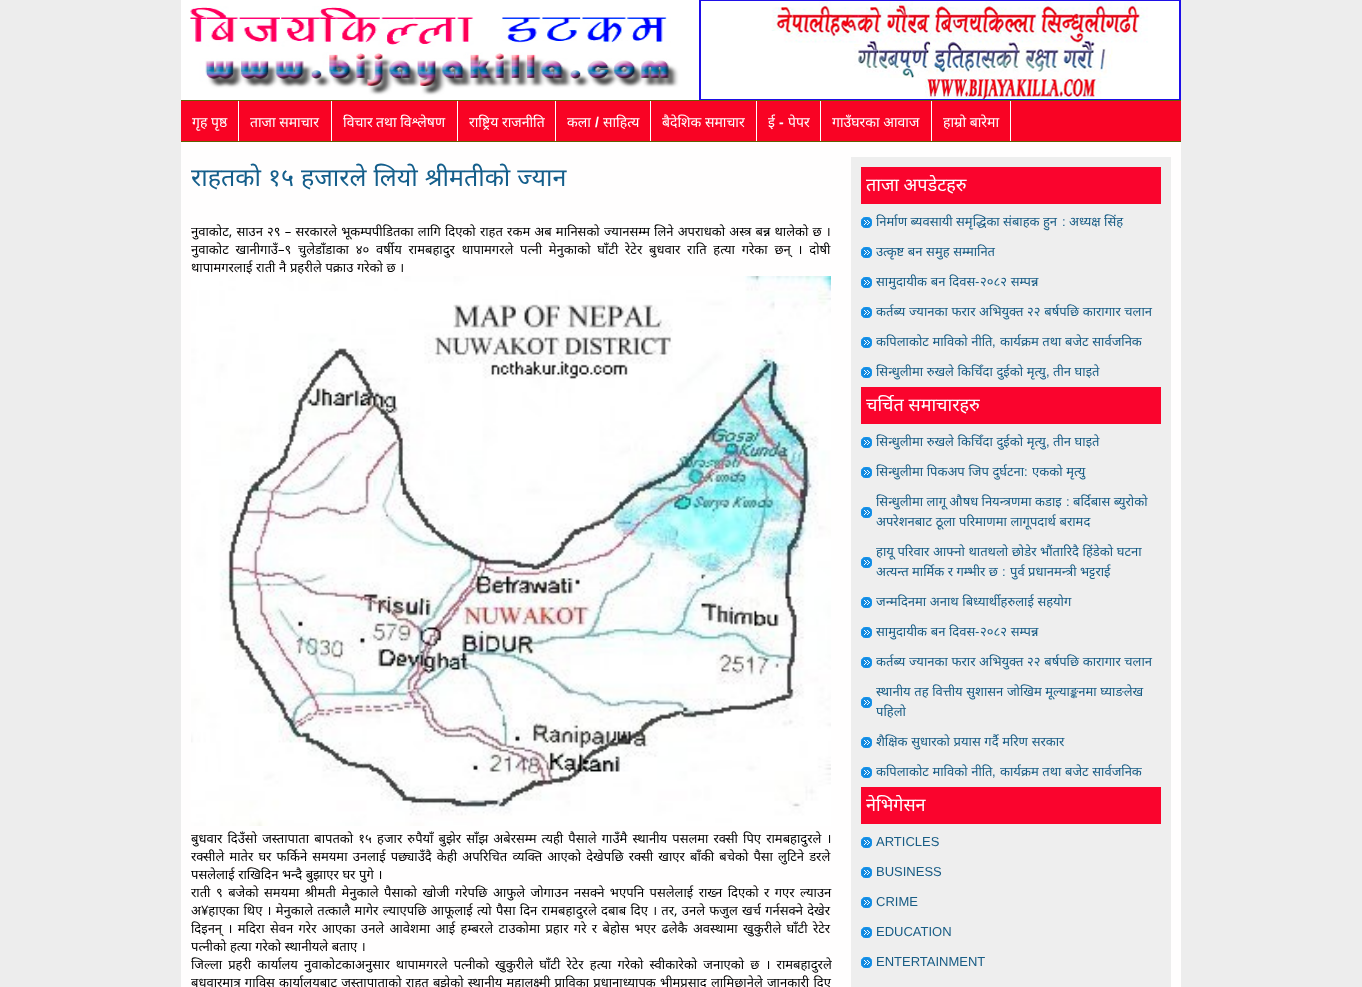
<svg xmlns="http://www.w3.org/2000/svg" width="1362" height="987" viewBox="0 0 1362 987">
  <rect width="100%" height="100%" fill="rgb(237,237,237)"/>
  <image x="181" y="0" width="518" height="100" href="pic1.png"/>
  <image x="699" y="0" width="482" height="100" href="pic2.png"/>
  <rect x="181" y="101" width="1000" height="40" fill="rgb(249,3,36)"/>
  <rect x="181" y="100" width="1000" height="1" fill="rgb(98,94,0)"/>
  <rect x="181" y="141" width="1000" height="1" fill="rgb(98,94,0)"/>
  <rect x="238" y="101" width="1" height="40" fill="rgb(255,255,255)"/>
  <text x="192" y="127" font-family="Noto Sans" font-size="14" fill="rgb(255,255,255)">गृह पृष्ठ</text>
  <rect x="331" y="101" width="1" height="40" fill="rgb(255,255,255)"/>
  <text x="250" y="127" font-family="Noto Sans" font-size="14" fill="rgb(255,255,255)">ताजा समाचार</text>
  <rect x="457" y="101" width="1" height="40" fill="rgb(255,255,255)"/>
  <g font-family="Noto Sans" font-size="14" fill="rgb(255,255,255)">
    <text x="343" y="127">विचार</text>
    <text x="376" y="127">तथा विश्लेषण</text>
  </g>
  <rect x="555" y="101" width="1" height="40" fill="rgb(255,255,255)"/>
  <text x="469" y="127" font-family="Noto Sans" font-size="14" fill="rgb(255,255,255)">राष्ट्रिय राजनीति</text>
  <rect x="650" y="101" width="1" height="40" fill="rgb(255,255,255)"/>
  <text x="567" y="127" font-family="Noto Sans" font-size="14" fill="rgb(255,255,255)">कला</text>
  <text x="595" y="127" font-family="Liberation Sans" font-size="14" font-weight="bold" fill="rgb(255,255,255)">/</text>
  <text x="603" y="127" font-family="Noto Sans" font-size="14" fill="rgb(255,255,255)">साहित्य</text>
  <rect x="756" y="101" width="1" height="40" fill="rgb(255,255,255)"/>
  <text x="662" y="127" font-family="Noto Sans" font-size="14" fill="rgb(255,255,255)">बैदेशिक समाचार</text>
  <rect x="820" y="101" width="1" height="40" fill="rgb(255,255,255)"/>
  <text x="768" y="127" font-family="Noto Sans" font-size="14" fill="rgb(255,255,255)">ई</text>
  <text x="779" y="127" font-family="Liberation Sans" font-size="14" font-weight="bold" fill="rgb(255,255,255)">-</text>
  <text x="788" y="127" font-family="Noto Sans" font-size="14" fill="rgb(255,255,255)">पेपर</text>
  <rect x="931" y="101" width="1" height="40" fill="rgb(255,255,255)"/>
  <text x="832" y="127" font-family="Noto Sans" font-size="14" fill="rgb(255,255,255)">गाउँघरका आवाज</text>
  <rect x="1010" y="101" width="1" height="40" fill="rgb(255,255,255)"/>
  <text x="943" y="127" font-family="Noto Sans" font-size="14" fill="rgb(255,255,255)">हाम्रो बारेमा</text>
  <rect x="181" y="142" width="1000" height="845" fill="rgb(255,254,254)"/>
  <text x="191" y="186" word-spacing="0.5" font-family="Noto Sans" font-size="25" fill="rgb(20,94,139)">राहतको १५ हजारले लियो श्रीमतीको ज्यान</text>
  <g font-family="Noto Sans" font-size="13" fill="rgb(0,0,0)">
    <text>
      <tspan x="191" y="236" word-spacing="0.8">नुवाकोट, साउन २९ – सरकारले भूकम्पपीडितका लागि दिएको राहत रकम अब मानिसको ज्यानसम्म लिने अपराधको अस्त्र बन्न थालेको छ ।</tspan>
      <tspan x="191" y="254" word-spacing="3.4">नुवाकोट खानीगाउँ–९ चुलेडाँडाका ४० वर्षीय रामबहादुर थापामगरले पत्नी मेनुकाको घाँटी रेटेर बुधवार राति हत्या गरेका छन् । दोषी</tspan>
      <tspan x="191" y="272" word-spacing="0.25">थापामगरलाई राती नै प्रहरीले पक्राउ गरेको छ ।</tspan>
    </text>
  </g>
  <image x="191" y="276" width="640" height="550" href="pic3.png"/>
  <g font-family="Noto Sans" font-size="13" fill="rgb(0,0,0)">
    <text>
      <tspan x="191" y="843" word-spacing="1.75">बुधवार दिउँसो जस्तापाता बापतको १५ हजार रुपैयाँ बुझेर साँझ अबेरसम्म त्यही पैसाले गाउँमै स्थानीय पसलमा रक्सी पिए रामबहादुरले ।</tspan>
      <tspan x="191" y="861" word-spacing="1.75">रक्सीले मातेर घर फर्किने समयमा उनलाई पछ्याउँदै केही अपरिचित व्यक्ति आएको देखेपछि रक्सी खाएर बाँकी बचेको पैसा लुटिने डरले</tspan>
      <tspan x="191" y="879" word-spacing="0.25">पसलेलाई राखिदिन भन्दै बुझाएर घर पुगे ।</tspan>
      <tspan x="191" y="897" word-spacing="2.1">राती ९ बजेको समयमा श्रीमती मेनुकाले पैसाको खोजी गरेपछि आफुले जोगाउन नसक्ने भएपनि पसलेलाई राख्न दिएको र गएर ल्याउन</tspan>
      <tspan x="191" y="915" word-spacing="0.9">अ¥हाएका थिए । मेनुकाले तत्कालै मागेर ल्याएपछि आफूलाई त्यो पैसा दिन रामबहादुरले दबाब दिए । तर, उनले फजुल खर्च गर्नसक्ने देखेर</tspan>
      <tspan x="191" y="933" word-spacing="2">दिइनन् । मदिरा सेवन गरेर आएका उनले आवेशमा आई हम्बरले टाउकोमा प्रहार गरे र बेहोस भएर ढलेकै अवस्थामा खुकुरीले घाँटी रेटेर</tspan>
      <tspan x="191" y="951" word-spacing="0.25">पत्नीको हत्या गरेको स्थानीयले बताए ।</tspan>
      <tspan x="191" y="969" word-spacing="2.75">जिल्ला प्रहरी कार्यालय नुवाकोटकाअनुसार थापामगरले पत्नीको खुकुरीले घाँटी रेटेर हत्या गरेको स्वीकारेको जनाएको छ । रामबहादुरले</tspan>
      <tspan x="191" y="987" word-spacing="0.8">बुधवारमात्र गाविस कार्यालयबाट जस्तापाताको राहत बुझेको स्थानीय महालक्ष्मी प्राविका प्रधानाध्यापक भीमप्रसाद लामिछानेले जानकारी दिए</tspan>
    </text>
  </g>
  <rect x="851" y="157" width="320" height="830" fill="rgb(238,238,238)"/>
  <rect x="861" y="167" width="300" height="37" fill="rgb(250,4,45)"/>
  <text x="866" y="191" font-family="Noto Sans" font-size="18" fill="rgb(255,255,255)">ताजा अपडेटहरु</text>
  <image x="861" y="217" width="11" height="11" href="pic4.png"/>
  <text x="876" y="226" font-family="Noto Sans" font-size="13" fill="rgb(23,92,133)">निर्माण ब्यवसायी समृद्धिका संबाहक हुन</text>
  <text x="1062" y="226" font-family="Liberation Sans" font-size="13" fill="rgb(23,92,133)">:</text>
  <text x="1069" y="226" font-family="Noto Sans" font-size="13" fill="rgb(23,92,133)">अध्यक्ष सिंह</text>
  <image x="861" y="247" width="11" height="11" href="pic4.png"/>
  <text x="876" y="256" word-spacing="0.25" font-family="Noto Sans" font-size="13" fill="rgb(23,92,133)">उत्कृष्ट बन समुह सम्मानित</text>
  <image x="861" y="277" width="11" height="11" href="pic4.png"/>
  <text x="876" y="286" word-spacing="0.25" font-family="Noto Sans" font-size="13" fill="rgb(23,92,133)">सामुदायीक बन दिवस</text>
  <text x="975" y="286" font-family="Liberation Sans" font-size="13" fill="rgb(23,92,133)">-</text>
  <text x="980" y="286" word-spacing="0.25" font-family="Noto Sans" font-size="13" fill="rgb(23,92,133)">२०८२ सम्पन्न</text>
  <image x="861" y="307" width="11" height="11" href="pic4.png"/>
  <text x="876" y="316" word-spacing="0.25" font-family="Noto Sans" font-size="13" fill="rgb(23,92,133)">कर्तब्य ज्यानका फरार अभियुक्त २२ बर्षपछि कारागार चलान</text>
  <image x="861" y="337" width="11" height="11" href="pic4.png"/>
  <text x="876" y="346" word-spacing="0.25" font-family="Noto Sans" font-size="13" fill="rgb(23,92,133)">कपिलाकोट माविको नीति</text>
  <text x="992" y="346" font-family="Liberation Sans" font-size="13" fill="rgb(23,92,133)">,</text>
  <text x="1000" y="346" word-spacing="0.25" font-family="Noto Sans" font-size="13" fill="rgb(23,92,133)">कार्यक्रम तथा बजेट सार्वजनिक</text>
  <image x="861" y="367" width="11" height="11" href="pic4.png"/>
  <text x="876" y="376" word-spacing="0.25" font-family="Noto Sans" font-size="13" fill="rgb(23,92,133)">सिन्धुलीमा रुखले किचिँदा दुईको मृत्यु</text>
  <text x="1046" y="376" font-family="Liberation Sans" font-size="13" fill="rgb(23,92,133)">,</text>
  <text x="1053" y="376" word-spacing="0.25" font-family="Noto Sans" font-size="13" fill="rgb(23,92,133)">तीन घाइते</text>
  <rect x="861" y="387" width="300" height="37" fill="rgb(250,4,45)"/>
  <text x="866" y="411" font-family="Noto Sans" font-size="18" fill="rgb(255,255,255)">चर्चित समाचारहरु</text>
  <image x="861" y="437" width="11" height="11" href="pic4.png"/>
  <text x="876" y="446" word-spacing="0.25" font-family="Noto Sans" font-size="13" fill="rgb(23,92,133)">सिन्धुलीमा रुखले किचिँदा दुईको मृत्यु</text>
  <text x="1046" y="446" font-family="Liberation Sans" font-size="13" fill="rgb(23,92,133)">,</text>
  <text x="1053" y="446" word-spacing="0.25" font-family="Noto Sans" font-size="13" fill="rgb(23,92,133)">तीन घाइते</text>
  <image x="861" y="467" width="11" height="11" href="pic4.png"/>
  <text x="876" y="476" word-spacing="0.25" font-family="Noto Sans" font-size="13" fill="rgb(23,92,133)">सिन्धुलीमा पिकअप जिप दुर्घटना</text>
  <text x="1024" y="476" font-family="Liberation Sans" font-size="13" fill="rgb(23,92,133)">:</text>
  <text x="1032" y="476" word-spacing="0.25" font-family="Noto Sans" font-size="13" fill="rgb(23,92,133)">एकको मृत्यु</text>
  <image x="861" y="507" width="11" height="11" href="pic4.png"/>
  <text x="876" y="506" font-family="Noto Sans" font-size="13" fill="rgb(23,92,133)">सिन्धुलीमा लागू औषध नियन्त्रणमा कडाइ</text>
  <text x="1066" y="506" font-family="Liberation Sans" font-size="13" fill="rgb(23,92,133)">:</text>
  <g font-family="Noto Sans" font-size="13" fill="rgb(23,92,133)">
    <text x="1073" y="506">बर्दिबास ब्युरोको</text>
    <text x="876" y="526" word-spacing="0.25">अपरेशनबाट ठूला परिमाणमा लागूपदार्थ बरामद</text>
  </g>
  <image x="861" y="557" width="11" height="11" href="pic4.png"/>
  <g font-family="Noto Sans" font-size="13" fill="rgb(23,92,133)">
    <text>
      <tspan x="876" y="556" word-spacing="0.25">हायू परिवार आफ्नो थातथलो छोडेर भौंतारिदै हिंडेको घटना</tspan>
      <tspan x="876" y="576">अत्यन्त मार्मिक र गम्भीर छ</tspan>
    </text>
  </g>
  <text x="1002" y="576" font-family="Liberation Sans" font-size="13" fill="rgb(23,92,133)">:</text>
  <text x="1010" y="576" font-family="Noto Sans" font-size="13" fill="rgb(23,92,133)">पुर्व प्रधानमन्त्री भट्टराई</text>
  <image x="861" y="597" width="11" height="11" href="pic4.png"/>
  <text x="876" y="606" word-spacing="0.25" font-family="Noto Sans" font-size="13" fill="rgb(23,92,133)">जन्मदिनमा अनाथ बिध्यार्थीहरुलाई सहयोग</text>
  <image x="861" y="627" width="11" height="11" href="pic4.png"/>
  <text x="876" y="636" word-spacing="0.25" font-family="Noto Sans" font-size="13" fill="rgb(23,92,133)">सामुदायीक बन दिवस</text>
  <text x="975" y="636" font-family="Liberation Sans" font-size="13" fill="rgb(23,92,133)">-</text>
  <text x="980" y="636" word-spacing="0.25" font-family="Noto Sans" font-size="13" fill="rgb(23,92,133)">२०८२ सम्पन्न</text>
  <image x="861" y="657" width="11" height="11" href="pic4.png"/>
  <text x="876" y="666" word-spacing="0.25" font-family="Noto Sans" font-size="13" fill="rgb(23,92,133)">कर्तब्य ज्यानका फरार अभियुक्त २२ बर्षपछि कारागार चलान</text>
  <image x="861" y="697" width="11" height="11" href="pic4.png"/>
  <g font-family="Noto Sans" font-size="13" fill="rgb(23,92,133)">
    <text>
      <tspan x="876" y="696" word-spacing="0.25">स्थानीय तह वित्तीय सुशासन जोखिम मूल्याङ्कनमा घ्याङलेख</tspan>
      <tspan x="876" y="716">पहिलो</tspan>
    </text>
  </g>
  <image x="861" y="737" width="11" height="11" href="pic4.png"/>
  <text x="876" y="746" word-spacing="0.25" font-family="Noto Sans" font-size="13" fill="rgb(23,92,133)">शैक्षिक सुधारको प्रयास गर्दै मरिण सरकार</text>
  <image x="861" y="767" width="11" height="11" href="pic4.png"/>
  <text x="876" y="776" word-spacing="0.25" font-family="Noto Sans" font-size="13" fill="rgb(23,92,133)">कपिलाकोट माविको नीति</text>
  <text x="992" y="776" font-family="Liberation Sans" font-size="13" fill="rgb(23,92,133)">,</text>
  <text x="1000" y="776" word-spacing="0.25" font-family="Noto Sans" font-size="13" fill="rgb(23,92,133)">कार्यक्रम तथा बजेट सार्वजनिक</text>
  <rect x="861" y="787" width="300" height="37" fill="rgb(250,4,45)"/>
  <text x="866" y="811" font-family="Noto Sans" font-size="18" fill="rgb(255,255,255)">नेभिगेसन</text>
  <image x="861" y="837" width="11" height="11" href="pic4.png"/>
  <text x="876" y="846" font-family="Liberation Sans" font-size="13" fill="rgb(23,92,133)">ARTICLES</text>
  <image x="861" y="867" width="11" height="11" href="pic4.png"/>
  <text x="876" y="876" font-family="Liberation Sans" font-size="13" fill="rgb(23,92,133)">BUSINESS</text>
  <image x="861" y="897" width="11" height="11" href="pic4.png"/>
  <text x="876" y="906" font-family="Liberation Sans" font-size="13" fill="rgb(23,92,133)">CRIME</text>
  <image x="861" y="927" width="11" height="11" href="pic4.png"/>
  <text x="876" y="936" font-family="Liberation Sans" font-size="13" fill="rgb(23,92,133)">EDUCATION</text>
  <image x="861" y="957" width="11" height="11" href="pic4.png"/>
  <text x="876" y="966" font-family="Liberation Sans" font-size="13" fill="rgb(23,92,133)">ENTERTAINMENT</text>
</svg>
